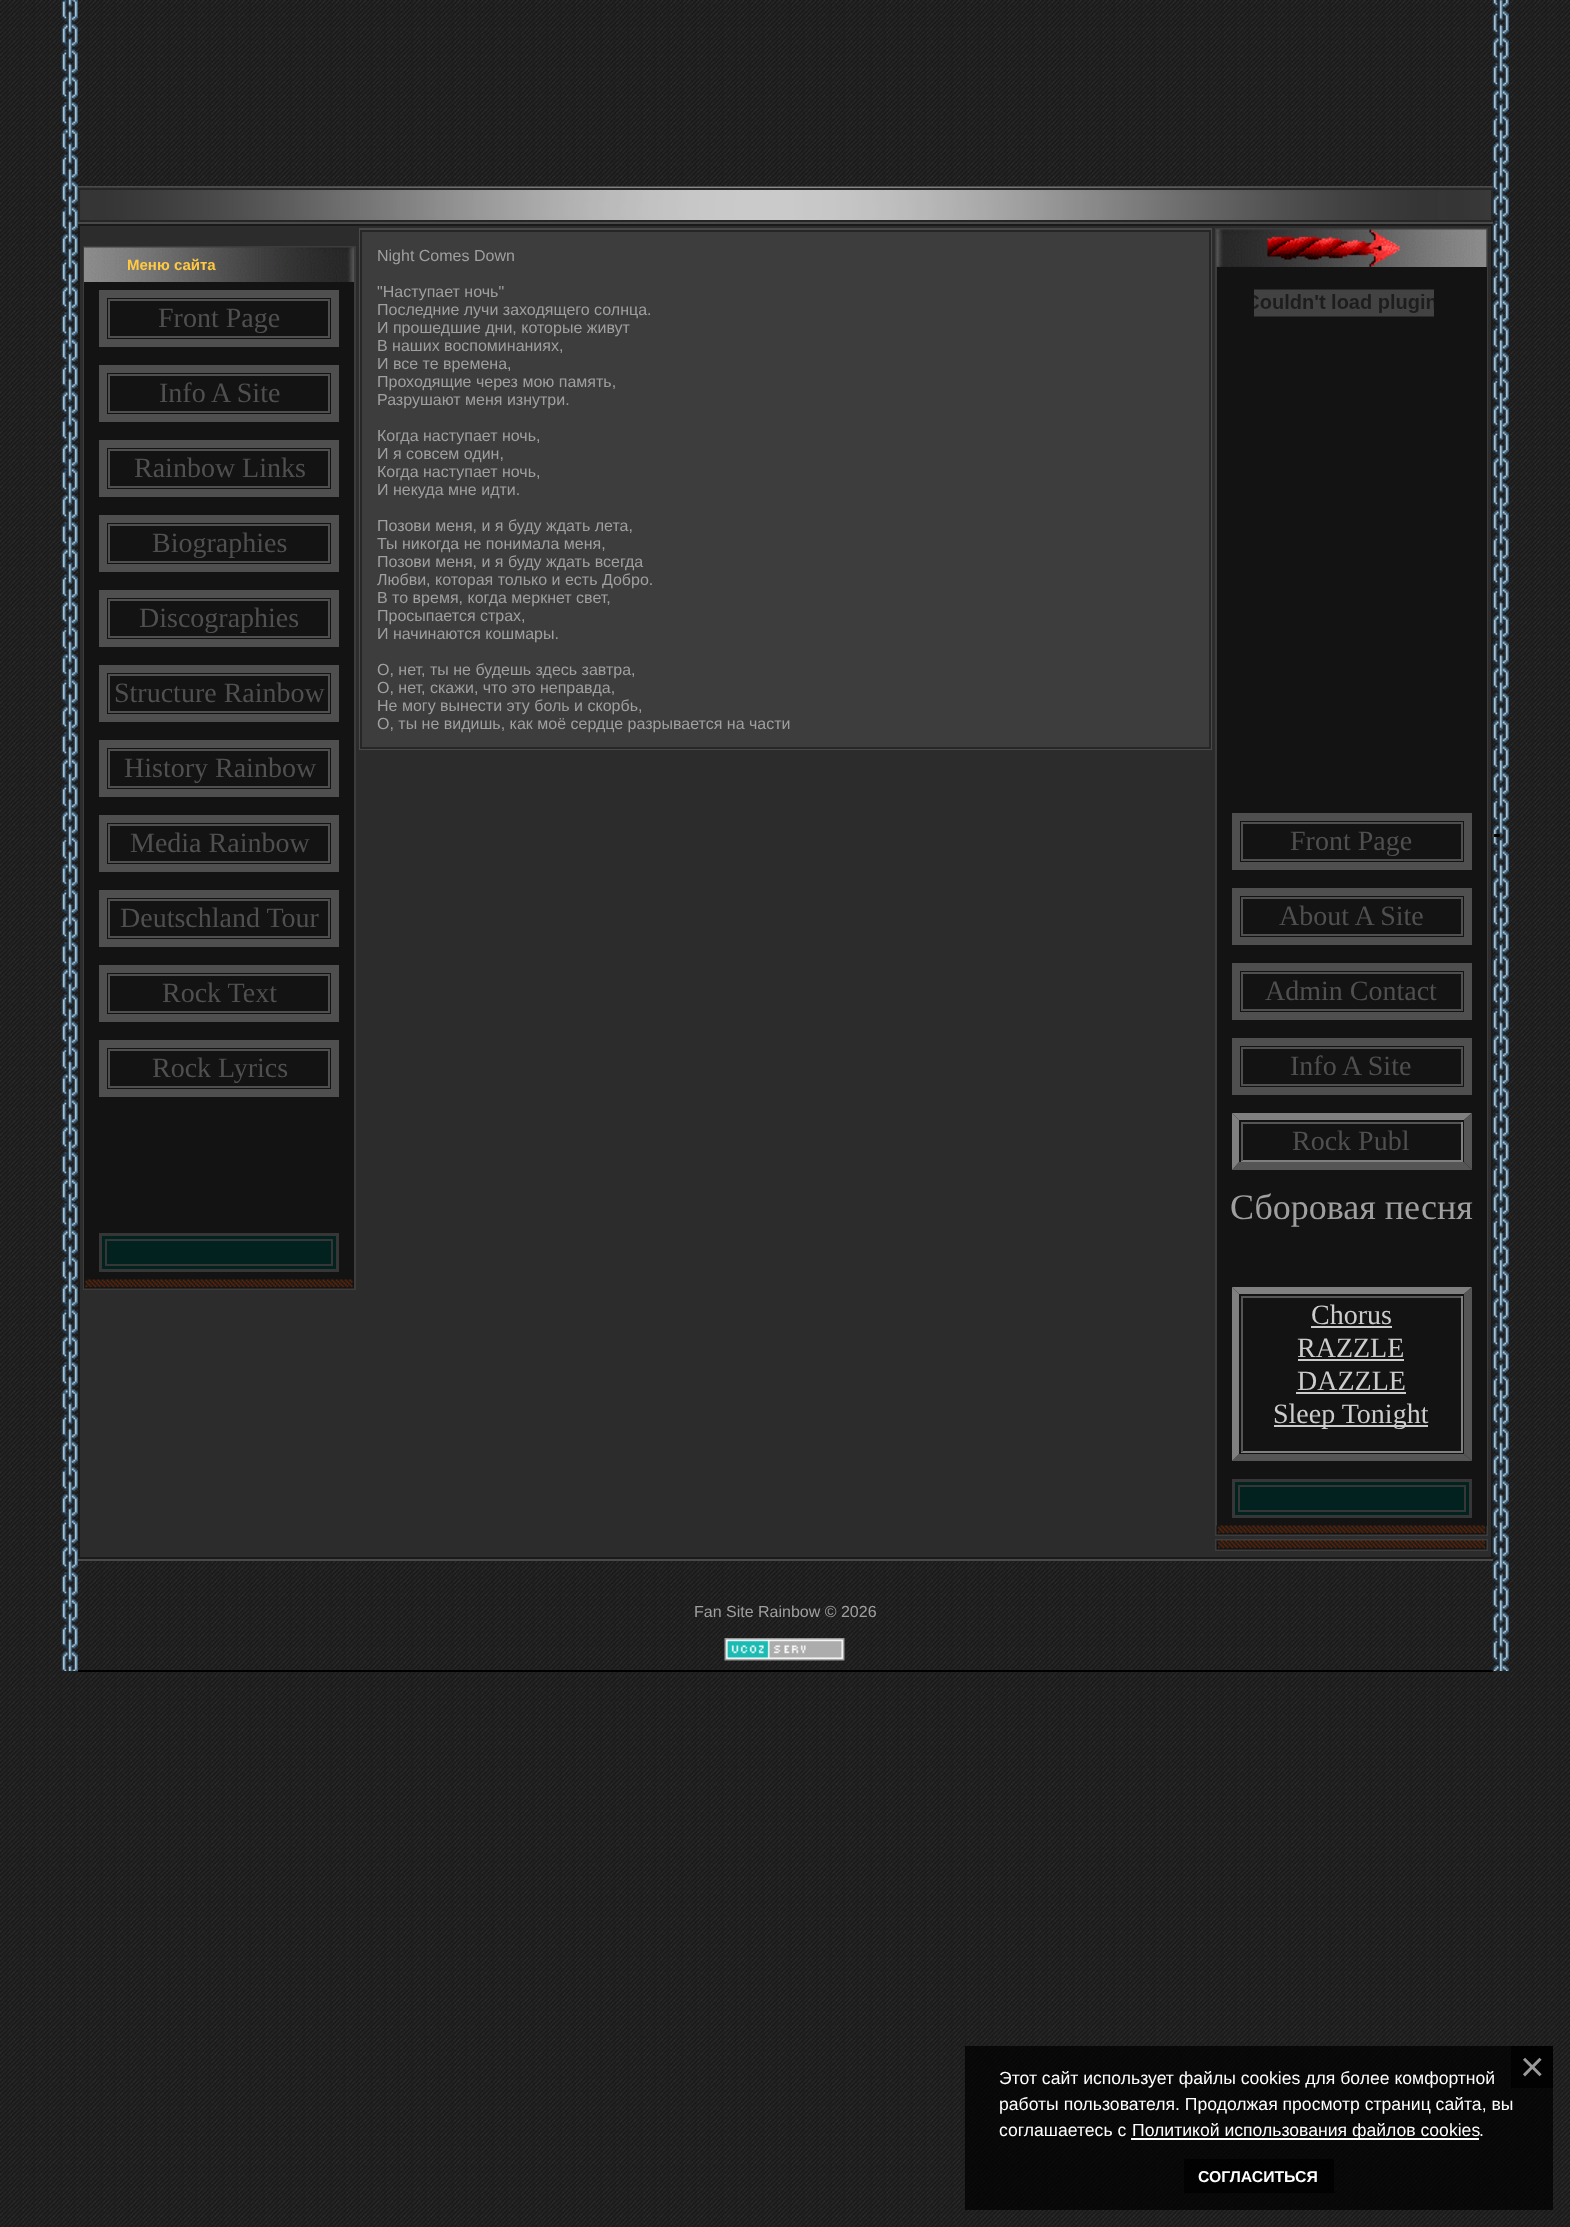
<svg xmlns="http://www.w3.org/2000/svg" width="1570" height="2227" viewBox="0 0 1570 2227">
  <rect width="100%" height="100%" fill="rgb(255,255,255)"/>
  <image x="0" y="0" width="1570" height="2227" href="pic1.png"/>
  <image x="61" y="0" width="17" height="1671" href="pic2.png"/>
  <rect x="78" y="1670" width="1415" height="2" fill="rgb(0,0,0)"/>
  <rect x="78" y="186" width="1415" height="2" fill="rgb(73,73,73)"/>
  <image x="78" y="187" width="1415" height="33" href="pic3.png"/>
  <rect x="79" y="189" width="1413" height="32" fill="none" stroke="rgb(38,38,38)" stroke-width="2"/>
  <rect x="78" y="222" width="1415" height="2" fill="rgb(73,73,73)"/>
  <rect x="78" y="1559" width="1415" height="2" fill="rgb(73,73,73)"/>
  <rect x="79" y="225" width="1413" height="1333" fill="rgb(44,44,44)" stroke="rgb(26,26,26)" stroke-width="2"/>
  <rect x="84" y="247" width="271" height="1042" fill="none" stroke="rgb(60,60,60)" stroke-width="2"/>
  <image x="84" y="247" width="270" height="35" href="pic4.png"/>
  <text x="127" y="270" font-family="Liberation Sans" font-size="15" font-weight="bold" fill="rgb(255,202,66)">Меню сайта</text>
  <rect x="84" y="282" width="270" height="998" fill="rgb(19,19,19)"/>
  <rect x="103" y="294" width="232" height="49" fill="none" stroke="rgb(79,79,79)" stroke-width="8"/>
  <rect x="109" y="300" width="220" height="37" fill="none" stroke="rgb(79,79,79)" stroke-width="2"/>
  <text x="158" y="327" font-family="Liberation Serif" font-size="28" fill="rgb(79,79,79)">Front Page</text>
  <rect x="103" y="369" width="232" height="49" fill="none" stroke="rgb(79,79,79)" stroke-width="8"/>
  <rect x="109" y="375" width="220" height="37" fill="none" stroke="rgb(79,79,79)" stroke-width="2"/>
  <text x="159" y="402" font-family="Liberation Serif" font-size="28" fill="rgb(79,79,79)">Info A Site</text>
  <rect x="103" y="444" width="232" height="49" fill="none" stroke="rgb(79,79,79)" stroke-width="8"/>
  <rect x="109" y="450" width="220" height="37" fill="none" stroke="rgb(79,79,79)" stroke-width="2"/>
  <text x="134" y="477" font-family="Liberation Serif" font-size="28" fill="rgb(79,79,79)">Rainbow Links</text>
  <rect x="103" y="519" width="232" height="49" fill="none" stroke="rgb(79,79,79)" stroke-width="8"/>
  <rect x="109" y="525" width="220" height="37" fill="none" stroke="rgb(79,79,79)" stroke-width="2"/>
  <text x="152" y="552" font-family="Liberation Serif" font-size="28" fill="rgb(79,79,79)">Biographies</text>
  <rect x="103" y="594" width="232" height="49" fill="none" stroke="rgb(79,79,79)" stroke-width="8"/>
  <rect x="109" y="600" width="220" height="37" fill="none" stroke="rgb(79,79,79)" stroke-width="2"/>
  <text x="139" y="627" font-family="Liberation Serif" font-size="28" fill="rgb(79,79,79)">Discographies</text>
  <rect x="103" y="669" width="232" height="49" fill="none" stroke="rgb(79,79,79)" stroke-width="8"/>
  <rect x="109" y="675" width="220" height="37" fill="none" stroke="rgb(79,79,79)" stroke-width="2"/>
  <text x="114" y="702" font-family="Liberation Serif" font-size="28" fill="rgb(79,79,79)">Structure Rainbow</text>
  <rect x="103" y="744" width="232" height="49" fill="none" stroke="rgb(79,79,79)" stroke-width="8"/>
  <rect x="109" y="750" width="220" height="37" fill="none" stroke="rgb(79,79,79)" stroke-width="2"/>
  <text x="124" y="777" font-family="Liberation Serif" font-size="28" fill="rgb(79,79,79)">History Rainbow</text>
  <rect x="103" y="819" width="232" height="49" fill="none" stroke="rgb(79,79,79)" stroke-width="8"/>
  <rect x="109" y="825" width="220" height="37" fill="none" stroke="rgb(79,79,79)" stroke-width="2"/>
  <text x="130" y="852" font-family="Liberation Serif" font-size="28" fill="rgb(79,79,79)">Media Rainbow</text>
  <rect x="103" y="894" width="232" height="49" fill="none" stroke="rgb(79,79,79)" stroke-width="8"/>
  <rect x="109" y="900" width="220" height="37" fill="none" stroke="rgb(79,79,79)" stroke-width="2"/>
  <text x="120" y="927" font-family="Liberation Serif" font-size="28" fill="rgb(79,79,79)">Deutschland Tour</text>
  <rect x="103" y="969" width="232" height="49" fill="none" stroke="rgb(79,79,79)" stroke-width="8"/>
  <rect x="109" y="975" width="220" height="37" fill="none" stroke="rgb(79,79,79)" stroke-width="2"/>
  <text x="162" y="1002" font-family="Liberation Serif" font-size="28" fill="rgb(79,79,79)">Rock Text</text>
  <rect x="103" y="1044" width="232" height="49" fill="none" stroke="rgb(79,79,79)" stroke-width="8"/>
  <rect x="109" y="1050" width="220" height="37" fill="none" stroke="rgb(79,79,79)" stroke-width="2"/>
  <text x="152" y="1077" font-family="Liberation Serif" font-size="28" fill="rgb(79,79,79)">Rock Lyrics</text>
  <rect x="100.5" y="1234.5" width="237" height="36" fill="rgb(2,34,31)" stroke="rgb(54,54,54)" stroke-width="3"/>
  <rect x="106" y="1240" width="226" height="25" fill="none" stroke="rgb(54,54,54)" stroke-width="2"/>
  <image x="84" y="1279" width="270" height="10" href="pic5.png"/>
  <rect x="360" y="229" width="851" height="520" fill="none" stroke="rgb(73,73,73)" stroke-width="2"/>
  <rect x="361" y="231" width="849" height="517" fill="rgb(61,61,61)" stroke="rgb(38,38,38)" stroke-width="2"/>
  <g font-family="Liberation Sans" font-size="16" fill="rgb(159,159,159)">
    <text x="377" y="261">Night Comes Down</text>
    <text>
      <tspan x="377" y="297">"Наступает ночь"</tspan>
      <tspan x="377" y="315">Последние лучи заходящего солнца.</tspan>
      <tspan x="377" y="333">И прошедшие дни, которые живут</tspan>
      <tspan x="377" y="351">В наших воспоминаниях,</tspan>
      <tspan x="377" y="369">И все те времена,</tspan>
      <tspan x="377" y="387">Проходящие через мою память,</tspan>
      <tspan x="377" y="405">Разрушают меня изнутри.</tspan>
    </text>
    <text>
      <tspan x="377" y="441">Когда наступает ночь,</tspan>
      <tspan x="377" y="459">И я совсем один,</tspan>
      <tspan x="377" y="477">Когда наступает ночь,</tspan>
      <tspan x="377" y="495">И некуда мне идти.</tspan>
    </text>
    <text>
      <tspan x="377" y="531">Позови меня, и я буду ждать лета,</tspan>
      <tspan x="377" y="549">Ты никогда не понимала меня,</tspan>
      <tspan x="377" y="567">Позови меня, и я буду ждать всегда</tspan>
      <tspan x="377" y="585">Любви, которая только и есть Добро.</tspan>
      <tspan x="377" y="603">В то время, когда меркнет свет,</tspan>
      <tspan x="377" y="621">Просыпается страх,</tspan>
      <tspan x="377" y="639">И начинаются кошмары.</tspan>
    </text>
    <text>
      <tspan x="377" y="675">О, нет, ты не будешь здесь завтра,</tspan>
      <tspan x="377" y="693">О, нет, скажи, что это неправда,</tspan>
      <tspan x="377" y="711">Не могу вынести эту боль и скорбь,</tspan>
      <tspan x="377" y="729">О, ты не видишь, как моё сердце разрывается на части</tspan>
    </text>
  </g>
  <rect x="1216" y="229" width="271" height="1306" fill="none" stroke="rgb(60,60,60)" stroke-width="2"/>
  <rect x="1486" y="230" width="1" height="37" fill="rgb(37,37,37)"/>
  <image x="1216" y="229" width="271" height="38" href="pic6.png"/>
  <image x="1267" y="229" width="133" height="38" href="pic7.png"/>
  <rect x="1217" y="267" width="270" height="1259" fill="rgb(19,19,19)"/>
  <image x="1254" y="289" width="180" height="28" href="pic8.png"/>
  <rect x="1236" y="817" width="232" height="49" fill="none" stroke="rgb(79,79,79)" stroke-width="8"/>
  <rect x="1242" y="823" width="220" height="37" fill="none" stroke="rgb(79,79,79)" stroke-width="2"/>
  <text x="1290" y="850" font-family="Liberation Serif" font-size="28" fill="rgb(79,79,79)">Front Page</text>
  <rect x="1236" y="892" width="232" height="49" fill="none" stroke="rgb(79,79,79)" stroke-width="8"/>
  <rect x="1242" y="898" width="220" height="37" fill="none" stroke="rgb(79,79,79)" stroke-width="2"/>
  <text x="1279" y="925" font-family="Liberation Serif" font-size="28" fill="rgb(79,79,79)">About A Site</text>
  <rect x="1236" y="967" width="232" height="49" fill="none" stroke="rgb(79,79,79)" stroke-width="8"/>
  <rect x="1242" y="973" width="220" height="37" fill="none" stroke="rgb(79,79,79)" stroke-width="2"/>
  <text x="1265" y="1000" font-family="Liberation Serif" font-size="28" fill="rgb(79,79,79)">Admin Contact</text>
  <rect x="1236" y="1042" width="232" height="49" fill="none" stroke="rgb(79,79,79)" stroke-width="8"/>
  <rect x="1242" y="1048" width="220" height="37" fill="none" stroke="rgb(79,79,79)" stroke-width="2"/>
  <text x="1290" y="1075" font-family="Liberation Serif" font-size="28" fill="rgb(79,79,79)">Info A Site</text>
  <path d="M1232 1113H1472L1464 1120H1239Z" fill="rgb(128,128,128)"/>
  <path d="M1472 1113V1170L1464 1162V1120Z" fill="rgb(85,85,85)"/>
  <path d="M1472 1170H1232L1239 1162H1464Z" fill="rgb(85,85,85)"/>
  <path d="M1232 1170V1113L1239 1120V1162Z" fill="rgb(128,128,128)"/>
  <rect x="1241" y="1122" width="222" height="2" fill="rgb(85,85,85)"/>
  <rect x="1461" y="1122" width="2" height="39" fill="rgb(128,128,128)"/>
  <rect x="1241" y="1160" width="222" height="2" fill="rgb(128,128,128)"/>
  <rect x="1241" y="1122" width="2" height="39" fill="rgb(85,85,85)"/>
  <text x="1292" y="1150" font-family="Liberation Serif" font-size="28" fill="rgb(79,79,79)">Rock Publ</text>
  <text x="1230" y="1219" font-family="Liberation Serif" font-size="36" fill="rgb(159,159,159)">Сборовая песня</text>
  <path d="M1232 1287H1472L1464 1294H1239Z" fill="rgb(128,128,128)"/>
  <path d="M1472 1287V1461L1464 1454V1294Z" fill="rgb(85,85,85)"/>
  <path d="M1472 1461H1232L1239 1454H1464Z" fill="rgb(85,85,85)"/>
  <path d="M1232 1461V1287L1239 1294V1454Z" fill="rgb(128,128,128)"/>
  <rect x="1241" y="1296" width="222" height="2" fill="rgb(85,85,85)"/>
  <rect x="1461" y="1296" width="2" height="156" fill="rgb(128,128,128)"/>
  <rect x="1241" y="1451" width="222" height="2" fill="rgb(128,128,128)"/>
  <rect x="1241" y="1296" width="2" height="156" fill="rgb(85,85,85)"/>
  <text x="1311" y="1324" font-family="Liberation Serif" font-size="28" fill="rgb(204,204,204)">Chorus</text>
  <rect x="1311" y="1326" width="81" height="2" fill="rgb(204,204,204)"/>
  <text x="1297" y="1357" font-family="Liberation Serif" font-size="28" fill="rgb(204,204,204)">RAZZLE</text>
  <rect x="1298" y="1359" width="106" height="2" fill="rgb(204,204,204)"/>
  <text x="1297" y="1390" font-family="Liberation Serif" font-size="28" fill="rgb(204,204,204)">DAZZLE</text>
  <rect x="1296" y="1392" width="110" height="2" fill="rgb(204,204,204)"/>
  <rect x="1274" y="1425" width="154" height="2" fill="rgb(204,204,204)"/>
  <text x="1273" y="1423" font-family="Liberation Serif" font-size="28" fill="rgb(204,204,204)">Sleep Tonight</text>
  <rect x="1233.5" y="1480.5" width="237" height="36" fill="rgb(2,34,31)" stroke="rgb(54,54,54)" stroke-width="3"/>
  <rect x="1239" y="1486" width="226" height="25" fill="none" stroke="rgb(54,54,54)" stroke-width="2"/>
  <image x="1216" y="1525" width="271" height="10" href="pic9.png"/>
  <rect x="1216" y="1540" width="271" height="10" fill="none" stroke="rgb(60,60,60)" stroke-width="2"/>
  <image x="1216" y="1540" width="271" height="10" href="pic10.png"/>
  <text x="694" y="1617" font-family="Liberation Sans" font-size="16" fill="rgb(159,159,159)">Fan Site Rainbow © 2026</text>
  <image x="724" y="1638" width="121" height="23" href="pic11.png"/>
  <image x="1492" y="0" width="17" height="1671" href="pic12.png"/>
  <image x="1492" y="834" width="10" height="3" href="pic13.png"/>
  <rect x="965" y="2046" width="588" height="164" fill="rgba(0,0,0,0.73)"/>
  <rect x="1511" y="2046" width="42" height="42" fill="rgba(0,0,0,0.73)"/>
  <text x="1520" y="2081" font-family="Liberation Sans" font-size="42" fill="rgb(153,153,153)">×</text>
  <rect x="1184" y="2159" width="150" height="34" fill="rgba(0,0,0,0.73)"/>
  <text x="1198" y="2182" font-family="Liberation Sans" font-size="15.75" font-weight="bold" fill="rgb(255,255,255)">СОГЛАСИТЬСЯ</text>
  <g font-family="Liberation Sans" font-size="17.6" fill="rgb(255,255,255)">
    <text>
      <tspan x="999" y="2084">Этот сайт использует файлы cookies для более комфортной</tspan>
      <tspan x="999" y="2110">работы пользователя. Продолжая просмотр страниц сайта, вы</tspan>
      <tspan x="999" y="2136">соглашаетесь с</tspan>
    </text>
  </g>
  <rect x="1131" y="2138" width="348" height="2" fill="rgb(255,255,255)"/>
  <g font-family="Liberation Sans" font-size="17.6" fill="rgb(255,255,255)">
    <text x="1132" y="2136">Политикой использования файлов cookies</text>
    <text x="1479" y="2136">.</text>
  </g>
</svg>
